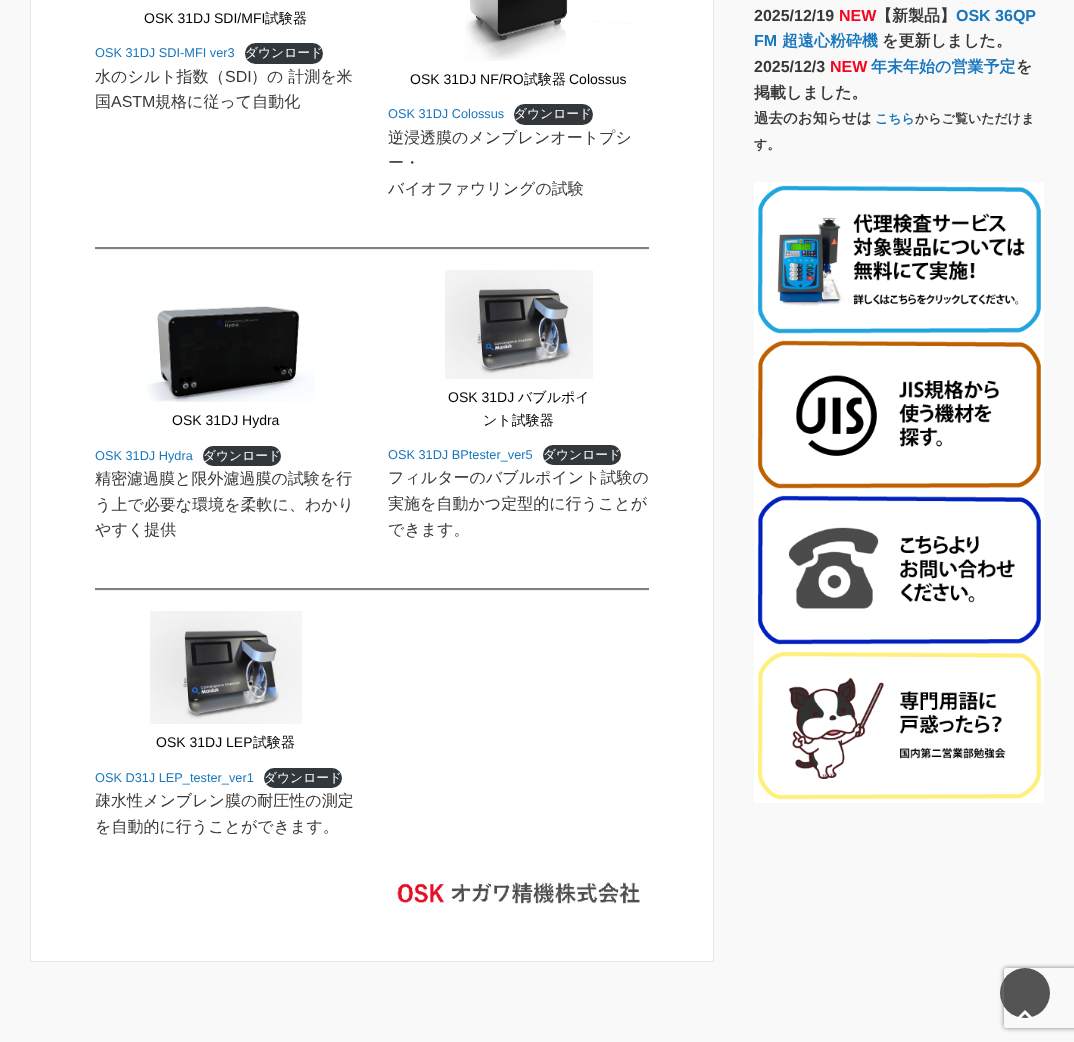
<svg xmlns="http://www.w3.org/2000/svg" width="1074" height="1042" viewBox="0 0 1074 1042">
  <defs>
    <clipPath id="clip1"><path d="M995 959H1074V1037H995ZM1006 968H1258C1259 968 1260 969 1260 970V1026C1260 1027 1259 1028 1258 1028H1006C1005 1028 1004 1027 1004 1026V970C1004 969 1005 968 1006 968Z" clip-rule="evenodd"/></clipPath>
  </defs>
  <rect width="100%" height="100%" fill="rgb(249,249,249)"/>
  <rect x="30.5" y="-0.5" width="683" height="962" fill="rgb(255,255,255)" stroke="rgb(229,229,229)"/>
  <text x="144" y="23" font-family="Liberation Sans" font-size="14" fill="rgb(0,0,0)">OSK 31DJ SDI/MFI</text>
  <text x="265" y="23" font-family="WenQuanYi Zen Hei" font-size="14" font-weight="500" fill="rgb(0,0,0)">試験器</text>
  <text x="95" y="57" font-family="Liberation Sans" font-size="12.75" fill="rgb(24,119,189)">OSK 31DJ SDI-MFI ver3</text>
  <rect x="245" y="43" width="78" height="21" rx="10.5" fill="rgb(50,55,60)"/>
  <text x="245" y="57" font-family="WenQuanYi Zen Hei" font-size="12.75" font-weight="500" fill="rgb(255,255,255)">ダウンロード</text>
  <text x="95" y="82" font-family="WenQuanYi Zen Hei" font-size="16" font-weight="500" fill="rgb(56,56,56)">水のシルト指数（</text>
  <text x="225" y="82" font-family="Liberation Sans" font-size="16" fill="rgb(56,56,56)">SDI</text>
  <g font-family="WenQuanYi Zen Hei" font-size="16" font-weight="500" fill="rgb(56,56,56)">
    <text x="251" y="82">）の 計測を米</text>
    <text x="95" y="107">国</text>
  </g>
  <text x="111" y="107" font-family="Liberation Sans" font-size="16" fill="rgb(56,56,56)">ASTM</text>
  <text x="155" y="107" font-family="WenQuanYi Zen Hei" font-size="16" font-weight="500" fill="rgb(56,56,56)">規格に従って自動化</text>
  <image x="465" y="0" width="169" height="61" href="pic1.png"/>
  <text x="410" y="84" font-family="Liberation Sans" font-size="14" fill="rgb(0,0,0)">OSK 31DJ NF/RO</text>
  <text x="524" y="84" font-family="WenQuanYi Zen Hei" font-size="14" font-weight="500" fill="rgb(0,0,0)">試験器</text>
  <text x="569" y="84" font-family="Liberation Sans" font-size="14" fill="rgb(0,0,0)">Colossus</text>
  <text x="388" y="118" font-family="Liberation Sans" font-size="12.75" fill="rgb(24,119,189)">OSK 31DJ Colossus</text>
  <rect x="514" y="104" width="79" height="21" rx="10.5" fill="rgb(50,55,60)"/>
  <text x="514" y="118" font-family="WenQuanYi Zen Hei" font-size="12.75" font-weight="500" fill="rgb(255,255,255)">ダウンロード</text>
  <g font-family="WenQuanYi Zen Hei" font-size="16" font-weight="500" fill="rgb(56,56,56)">
    <text>
      <tspan x="388" y="143">逆浸透膜のメンブレンオートプシ</tspan>
      <tspan x="388" y="168">ー・</tspan>
      <tspan x="388" y="194">バイオファウリングの試験</tspan>
    </text>
  </g>
  <rect x="95" y="247" width="554" height="2" fill="rgb(128,128,128)"/>
  <rect x="95" y="249" width="554" height="1" fill="rgb(239,239,239)"/>
  <image x="147" y="306" width="168" height="96" href="pic2.png"/>
  <text x="172" y="425" font-family="Liberation Sans" font-size="14" fill="rgb(0,0,0)">OSK 31DJ Hydra</text>
  <text x="95" y="460" font-family="Liberation Sans" font-size="12.75" fill="rgb(24,119,189)">OSK 31DJ Hydra</text>
  <rect x="203" y="446" width="78" height="20" rx="10" fill="rgb(50,55,60)"/>
  <text x="203" y="460" font-family="WenQuanYi Zen Hei" font-size="12.75" font-weight="500" fill="rgb(255,255,255)">ダウンロード</text>
  <g font-family="WenQuanYi Zen Hei" font-size="16" font-weight="500" fill="rgb(56,56,56)">
    <text>
      <tspan x="95" y="484">精密濾過膜と限外濾過膜の試験を行</tspan>
      <tspan x="95" y="510">う上で必要な環境を柔軟に、わかり</tspan>
      <tspan x="95" y="535">やすく提供</tspan>
    </text>
  </g>
  <image x="445" y="270" width="148" height="109" href="pic3.png"/>
  <text x="448" y="402" font-family="Liberation Sans" font-size="14" fill="rgb(0,0,0)">OSK 31DJ</text>
  <g font-family="WenQuanYi Zen Hei" font-size="14" font-weight="500" fill="rgb(0,0,0)">
    <text x="518" y="402">バブルポイ</text>
    <text x="483" y="425">ント試験器</text>
  </g>
  <text x="388" y="459" font-family="Liberation Sans" font-size="12.75" fill="rgb(24,119,189)">OSK 31DJ BPtester_ver5</text>
  <rect x="543" y="445" width="78" height="20" rx="10" fill="rgb(50,55,60)"/>
  <text x="543" y="459" font-family="WenQuanYi Zen Hei" font-size="12.75" font-weight="500" fill="rgb(255,255,255)">ダウンロード</text>
  <g font-family="WenQuanYi Zen Hei" font-size="16" font-weight="500" fill="rgb(56,56,56)">
    <text>
      <tspan x="388" y="483">フィルターのバブルポイント試験の</tspan>
      <tspan x="388" y="509">実施を自動かつ定型的に行うことが</tspan>
      <tspan x="388" y="535">できます。</tspan>
    </text>
  </g>
  <rect x="95" y="588" width="554" height="2" fill="rgb(128,128,128)"/>
  <rect x="95" y="590" width="554" height="1" fill="rgb(239,239,239)"/>
  <image x="150" y="611" width="152" height="113" href="pic4.png"/>
  <text x="156" y="747" font-family="Liberation Sans" font-size="14" fill="rgb(0,0,0)">OSK 31DJ LEP</text>
  <text x="253" y="747" font-family="WenQuanYi Zen Hei" font-size="14" font-weight="500" fill="rgb(0,0,0)">試験器</text>
  <text x="95" y="782" font-family="Liberation Sans" font-size="12.75" fill="rgb(24,119,189)">OSK D31J LEP_tester_ver1</text>
  <rect x="264" y="768" width="78" height="20" rx="10" fill="rgb(50,55,60)"/>
  <text x="264" y="782" font-family="WenQuanYi Zen Hei" font-size="12.75" font-weight="500" fill="rgb(255,255,255)">ダウンロード</text>
  <g font-family="WenQuanYi Zen Hei" font-size="16" font-weight="500" fill="rgb(56,56,56)">
    <text>
      <tspan x="95" y="806">疎水性メンブレン膜の耐圧性の測定</tspan>
      <tspan x="95" y="832">を自動的に行うことができます。</tspan>
    </text>
  </g>
  <image x="397" y="882" width="243" height="22" href="pic5.png"/>
  <text x="754" y="21" font-family="Liberation Sans" font-size="16" font-weight="bold" fill="rgb(56,56,56)">2025/12/19</text>
  <text x="839" y="21" font-family="Liberation Sans" font-size="16" font-weight="bold" fill="rgb(244,6,32)">NEW</text>
  <text x="876" y="21" font-family="WenQuanYi Zen Hei" font-size="16" font-weight="bold" fill="rgb(56,56,56)">【新製品】</text>
  <g font-family="Liberation Sans" font-size="16" font-weight="bold" fill="rgb(24,119,189)">
    <text x="956" y="21">OSK 36QP</text>
    <text x="754" y="46">FM</text>
  </g>
  <text x="782" y="46" font-family="WenQuanYi Zen Hei" font-size="16" font-weight="bold" fill="rgb(24,119,189)">超遠心粉砕機</text>
  <text x="882" y="46" font-family="WenQuanYi Zen Hei" font-size="16" font-weight="bold" fill="rgb(56,56,56)">を更新しました。</text>
  <text x="754" y="72" font-family="Liberation Sans" font-size="16" font-weight="bold" fill="rgb(56,56,56)">2025/12/3</text>
  <text x="830" y="72" font-family="Liberation Sans" font-size="16" font-weight="bold" fill="rgb(244,6,32)">NEW</text>
  <text x="871" y="72" font-family="WenQuanYi Zen Hei" font-size="16" font-weight="bold" fill="rgb(24,119,189)">年末年始の営業予定</text>
  <g font-family="WenQuanYi Zen Hei" font-size="16" font-weight="bold" fill="rgb(56,56,56)">
    <text x="1016" y="72">を</text>
    <text x="754" y="98">掲載しました。</text>
  </g>
  <text x="754" y="123" font-family="WenQuanYi Zen Hei" font-size="14.5" font-weight="bold" fill="rgb(56,56,56)">過去のお知らせは</text>
  <text x="875" y="123" font-family="WenQuanYi Zen Hei" font-size="13" font-weight="bold" fill="rgb(24,119,189)">こちら</text>
  <g font-family="WenQuanYi Zen Hei" font-size="13" font-weight="bold" fill="rgb(56,56,56)">
    <text x="915" y="123">からご覧いただけま</text>
    <text x="754" y="149">す。</text>
  </g>
  <image x="754" y="182" width="290" height="155" href="pic6.png"/>
  <image x="754" y="337" width="290" height="155" href="pic7.png"/>
  <image x="754" y="492" width="290" height="156" href="pic8.png"/>
  <image x="754" y="648" width="290" height="155" href="pic9.png"/>
  <circle cx="1025" cy="993" r="25" fill="rgb(84,84,84)"/>
  <path d="M1018 1021L1025 1014L1032 1021L1034 1019L1025 1010L1016 1019Z" fill="rgb(254,254,254)"/>
  <g clip-path="url(#clip1)">
    <rect x="1004" y="968" width="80" height="60" rx="2" fill="rgb(128,128,128)" filter="blur(2.5px)"/>
  </g>
</svg>
